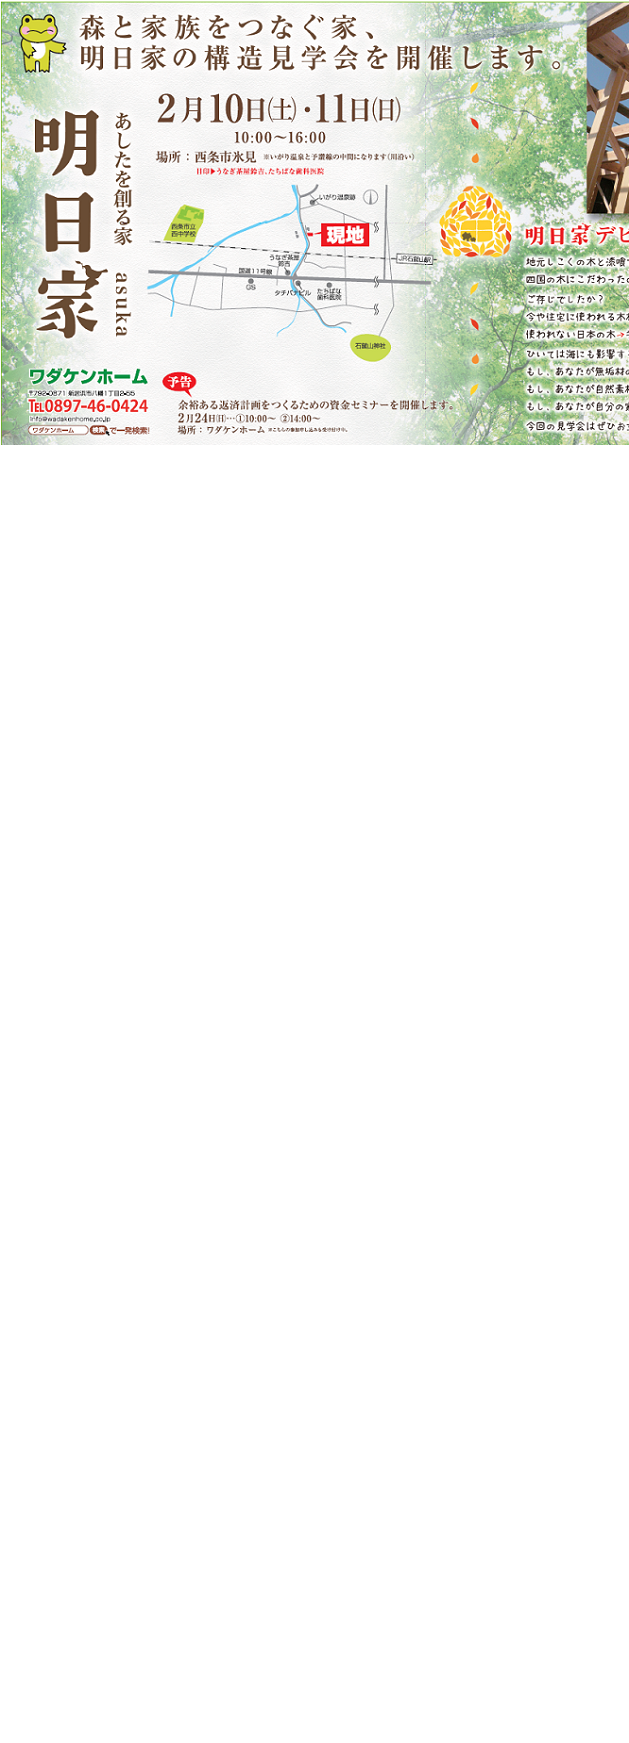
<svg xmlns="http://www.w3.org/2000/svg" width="629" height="1743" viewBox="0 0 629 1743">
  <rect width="100%" height="100%" fill="rgb(255,255,255)"/>
  <image x="0" y="1" width="629" height="444" href="pic1.png"/>
</svg>
